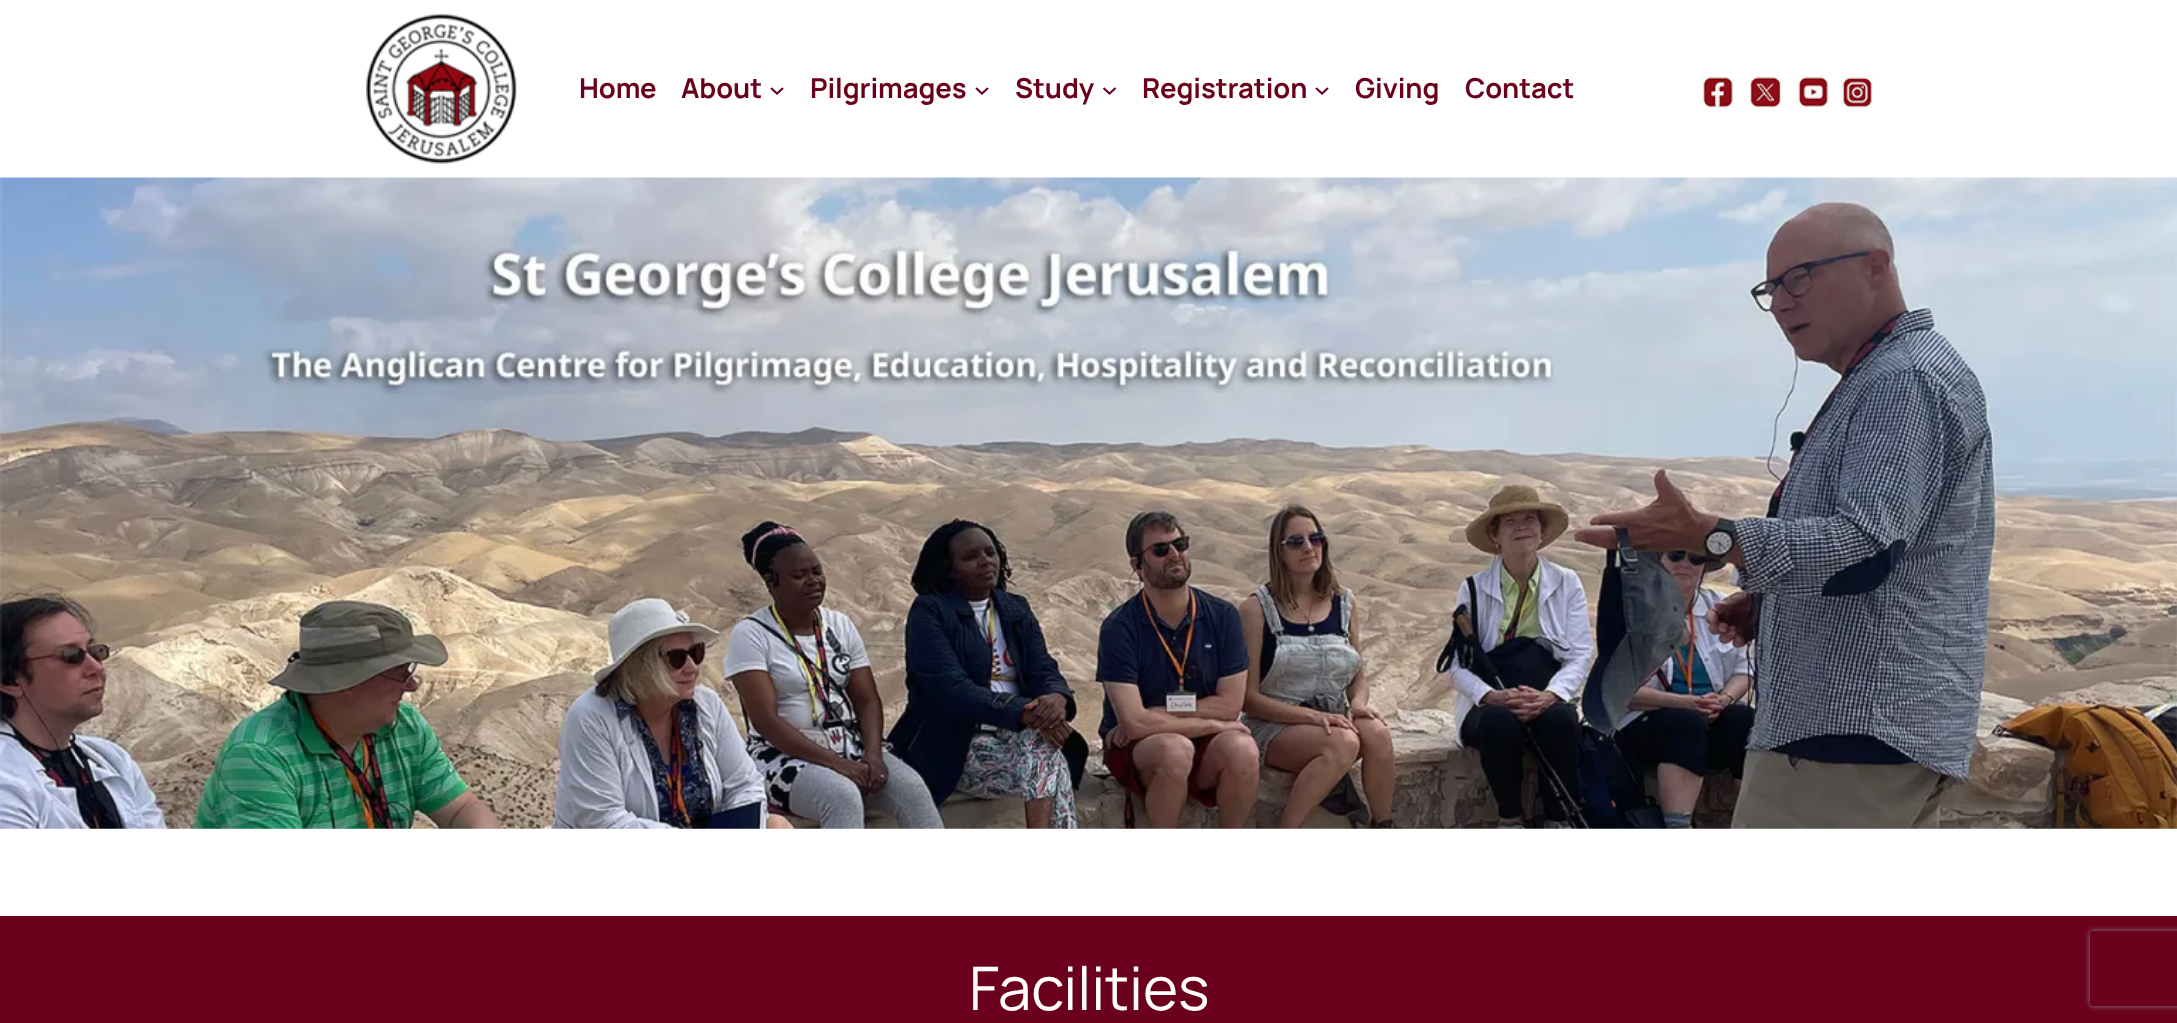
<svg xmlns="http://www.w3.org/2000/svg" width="2177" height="1023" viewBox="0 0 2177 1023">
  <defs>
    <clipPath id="clip1"><path d="M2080 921H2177V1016H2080ZM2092.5 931H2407.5C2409 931 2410 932 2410 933.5V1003.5C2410 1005 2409 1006 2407.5 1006H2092.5C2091 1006 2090 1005 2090 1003.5V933.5C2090 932 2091 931 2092.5 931Z" clip-rule="evenodd"/></clipPath>
  </defs>
  <rect width="100%" height="100%" fill="rgb(255,255,255)"/>
  <image x="366" y="13" width="151" height="151" href="pic1.png"/>
  <g font-family="Manrope" font-size="27.5" font-weight="bold" letter-spacing="-0.1" fill="rgb(107,0,28)">
    <text x="579" y="98">Home</text>
    <text x="681" y="98">About</text>
  </g>
  <path d="M771 88L777 93.5L783 88" fill="none" stroke="rgb(107,0,28)" stroke-width="2.1"/>
  <text x="810" y="98" font-family="Manrope" font-size="27.5" font-weight="bold" letter-spacing="-0.1" fill="rgb(107,0,28)">Pilgrimages</text>
  <path d="M976 88L982 93.5L988 88" fill="none" stroke="rgb(107,0,28)" stroke-width="2.1"/>
  <text x="1015" y="98" font-family="Manrope" font-size="27.5" font-weight="bold" letter-spacing="-0.1" fill="rgb(107,0,28)">Study</text>
  <path d="M1103.5 88L1109.5 93.5L1115.5 88" fill="none" stroke="rgb(107,0,28)" stroke-width="2.1"/>
  <text x="1142" y="98" font-family="Manrope" font-size="27.5" font-weight="bold" letter-spacing="-0.1" fill="rgb(107,0,28)">Registration</text>
  <path d="M1316 88L1322 93.5L1328 88" fill="none" stroke="rgb(107,0,28)" stroke-width="2.1"/>
  <g font-family="Manrope" font-size="27.5" font-weight="bold" letter-spacing="-0.1" fill="rgb(107,0,28)">
    <text x="1355" y="98">Giving</text>
    <text x="1465" y="98">Contact</text>
  </g>
  <image x="1701" y="75" width="34" height="34" href="pic2.png"/>
  <image x="1747" y="75" width="37" height="33" href="pic3.png"/>
  <image x="1796" y="75" width="32" height="34" href="pic4.png"/>
  <image x="1841" y="75" width="33" height="34" href="pic5.png"/>
  <image x="0" y="177" width="2177" height="652" href="pic6.png"/>
  <rect x="0" y="916" width="2177" height="107" fill="rgb(107,0,28)"/>
  <text x="969" y="1010" font-family="Manrope" font-size="60" letter-spacing="-0.1" fill="rgb(255,255,255)">Facilities</text>
  <g clip-path="url(#clip1)">
    <rect x="2090" y="931" width="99" height="75" rx="2.5" fill="rgb(128,128,128)" filter="blur(3px)"/>
  </g>
</svg>
